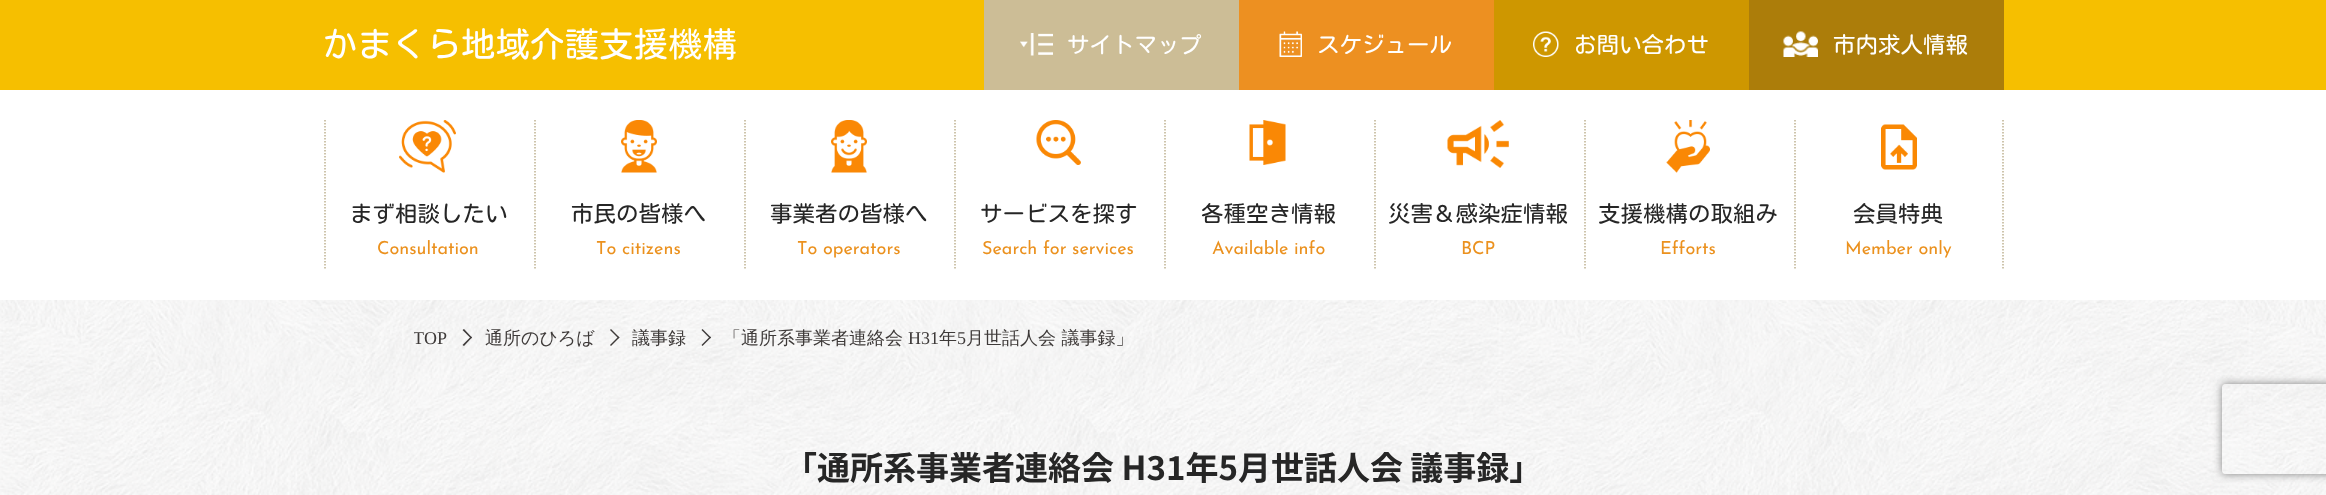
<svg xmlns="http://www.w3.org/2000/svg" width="2326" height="495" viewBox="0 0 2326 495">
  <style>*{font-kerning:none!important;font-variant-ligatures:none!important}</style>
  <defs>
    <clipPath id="clip1"><rect x="414" y="300" width="1500" height="143"/></clipPath>
    <clipPath id="clip2"><path d="M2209 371H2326V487H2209ZM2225 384H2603C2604.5 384 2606 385.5 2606 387V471C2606 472.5 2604.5 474 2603 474H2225C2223.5 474 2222 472.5 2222 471V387C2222 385.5 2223.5 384 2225 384Z" clip-rule="evenodd"/></clipPath>
  </defs>
  <rect width="100%" height="100%" fill="rgb(255,255,255)"/>
  <image x="0" y="300" width="2326" height="195" href="pic1.png"/>
  <rect x="0" y="0" width="2326" height="90" fill="rgb(246,191,0)"/>
  <text x="323" y="57" font-family="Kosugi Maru" font-size="34.5" fill="rgb(255,255,255)">かまくら地域介護支援機構</text>
  <rect x="984" y="0" width="255" height="90" fill="rgb(204,189,150)"/>
  <image x="1020" y="33" width="33" height="23" href="pic2.png"/>
  <text x="1067" y="53" font-family="Kosugi Maru" font-size="22.5" fill="rgb(255,255,255)">サイトマップ</text>
  <rect x="1239" y="0" width="255" height="90" fill="rgb(237,144,33)"/>
  <image x="1279" y="31" width="23" height="26" href="pic3.png"/>
  <text x="1317" y="53" font-family="Kosugi Maru" font-size="22.5" fill="rgb(255,255,255)">スケジュール</text>
  <rect x="1494" y="0" width="255" height="90" fill="rgb(206,151,0)"/>
  <image x="1533" y="31" width="26" height="26" href="pic4.png"/>
  <text x="1574" y="53" font-family="Kosugi Maru" font-size="22.5" fill="rgb(255,255,255)">お問い合わせ</text>
  <rect x="1749" y="0" width="255" height="90" fill="rgb(172,125,10)"/>
  <image x="1783" y="31" width="35" height="26" href="pic5.png"/>
  <text x="1833" y="53" font-family="Kosugi Maru" font-size="22.5" fill="rgb(255,255,255)">市内求人情報</text>
  <image x="399" y="120" width="57" height="53" href="pic6.png"/>
  <path d="M325 120V270" fill="none" stroke="rgb(190,177,145)" stroke-width="1.5" stroke-dasharray="1.5 1.5"/>
  <text x="350" y="222" font-family="Kosugi Maru" font-size="22.5" fill="rgb(38,38,38)">まず相談したい</text>
  <text x="377" y="254" font-family="Josefin Sans" font-size="18" font-weight="100" fill="rgb(235,145,30)">Consultation</text>
  <image x="621" y="120" width="36" height="53" href="pic7.png"/>
  <path d="M535 120V270" fill="none" stroke="rgb(190,177,145)" stroke-width="1.5" stroke-dasharray="1.5 1.5"/>
  <text x="571" y="222" font-family="Kosugi Maru" font-size="22.5" fill="rgb(38,38,38)">市民の皆様へ</text>
  <text x="596" y="254" font-family="Josefin Sans" font-size="18" font-weight="100" fill="rgb(235,145,30)">To citizens</text>
  <image x="831" y="120" width="36" height="53" href="pic8.png"/>
  <path d="M745 120V270" fill="none" stroke="rgb(190,177,145)" stroke-width="1.5" stroke-dasharray="1.5 1.5"/>
  <text x="770" y="222" font-family="Kosugi Maru" font-size="22.5" fill="rgb(38,38,38)">事業者の皆様へ</text>
  <text x="797" y="254" font-family="Josefin Sans" font-size="18" font-weight="100" fill="rgb(235,145,30)">To operators</text>
  <image x="1036" y="120" width="45" height="45" href="pic9.png"/>
  <path d="M955 120V270" fill="none" stroke="rgb(190,177,145)" stroke-width="1.5" stroke-dasharray="1.5 1.5"/>
  <text x="980" y="222" font-family="Kosugi Maru" font-size="22.5" fill="rgb(38,38,38)">サービスを探す</text>
  <text x="982" y="254" font-family="Josefin Sans" font-size="18" font-weight="100" fill="rgb(235,145,30)">Search for services</text>
  <image x="1249" y="120" width="37" height="45" href="pic10.png"/>
  <path d="M1165 120V270" fill="none" stroke="rgb(190,177,145)" stroke-width="1.5" stroke-dasharray="1.5 1.5"/>
  <text x="1201" y="222" font-family="Kosugi Maru" font-size="22.5" fill="rgb(38,38,38)">各種空き情報</text>
  <text x="1212" y="254" font-family="Josefin Sans" font-size="18" font-weight="100" fill="rgb(235,145,30)">Available info</text>
  <image x="1447" y="120" width="62" height="48" href="pic11.png"/>
  <path d="M1375 120V270" fill="none" stroke="rgb(190,177,145)" stroke-width="1.5" stroke-dasharray="1.5 1.5"/>
  <text x="1388" y="222" font-family="Kosugi Maru" font-size="22.5" fill="rgb(38,38,38)">災害＆感染症情報</text>
  <text x="1461" y="254" font-family="Josefin Sans" font-size="18" font-weight="100" fill="rgb(235,145,30)">BCP</text>
  <image x="1666" y="120" width="44" height="53" href="pic12.png"/>
  <path d="M1585 120V270" fill="none" stroke="rgb(190,177,145)" stroke-width="1.5" stroke-dasharray="1.5 1.5"/>
  <text x="1598" y="222" font-family="Kosugi Maru" font-size="22.5" fill="rgb(38,38,38)">支援機構の取組み</text>
  <text x="1660" y="254" font-family="Josefin Sans" font-size="18" font-weight="100" fill="rgb(235,145,30)">Efforts</text>
  <image x="1881" y="124" width="36" height="46" href="pic13.png"/>
  <path d="M1795 120V270" fill="none" stroke="rgb(190,177,145)" stroke-width="1.5" stroke-dasharray="1.5 1.5"/>
  <text x="1853" y="222" font-family="Kosugi Maru" font-size="22.5" fill="rgb(38,38,38)">会員特典</text>
  <path d="M2003 120V270" fill="none" stroke="rgb(190,177,145)" stroke-width="1.5" stroke-dasharray="1.5 1.5"/>
  <text x="1845" y="254" font-family="Josefin Sans" font-size="18" font-weight="100" fill="rgb(235,145,30)">Member only</text>
  <g clip-path="url(#clip1)">
    <text x="413" y="344" font-family="Liberation Serif" font-size="18" fill="rgb(62,58,57)">TOP</text>
  </g>
  <path d="M464 329L472 337.5L471 338.5L462.5 330Z" fill="rgb(62,58,57)"/>
  <path d="M471 336.5L472 337.5L464 346L462.5 345Z" fill="rgb(62,58,57)"/>
  <text x="485" y="344" font-family="WenQuanYi Zen Hei" font-size="18" font-weight="500" fill="rgb(62,58,57)">通所のひろば</text>
  <path d="M611 329L619.5 337.5L618.5 338.5L610 330Z" fill="rgb(62,58,57)"/>
  <path d="M618.5 336.5L619.5 337.5L611 346L610 345Z" fill="rgb(62,58,57)"/>
  <text x="632" y="344" font-family="WenQuanYi Zen Hei" font-size="18" font-weight="500" fill="rgb(62,58,57)">議事録</text>
  <path d="M702.5 329L711 337.5L710 338.5L701.5 330Z" fill="rgb(62,58,57)"/>
  <path d="M710 336.5L711 337.5L702.5 346L701.5 345Z" fill="rgb(62,58,57)"/>
  <text x="723" y="344" font-family="WenQuanYi Zen Hei" font-size="18" font-weight="500" fill="rgb(62,58,57)">「通所系事業者連絡会</text>
  <text x="908" y="344" font-family="Liberation Serif" font-size="18" fill="rgb(62,58,57)">H31</text>
  <text x="939" y="344" font-family="WenQuanYi Zen Hei" font-size="18" font-weight="500" fill="rgb(62,58,57)">年</text>
  <text x="957" y="344" font-family="Liberation Serif" font-size="18" fill="rgb(62,58,57)">5</text>
  <text x="966" y="344" font-family="WenQuanYi Zen Hei" font-size="18" font-weight="500" fill="rgb(62,58,57)">月世話人会 議事録」</text>
  <text x="784" y="480" font-family="Noto Sans JP" font-size="33" font-weight="bold" fill="rgb(38,38,38)">「通所系事業者連絡会 H31年5月世話人会 議事録」</text>
  <g clip-path="url(#clip2)">
    <rect x="2222" y="384" width="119" height="90" rx="3" fill="rgb(128,128,128)" filter="blur(4px)"/>
  </g>
</svg>
